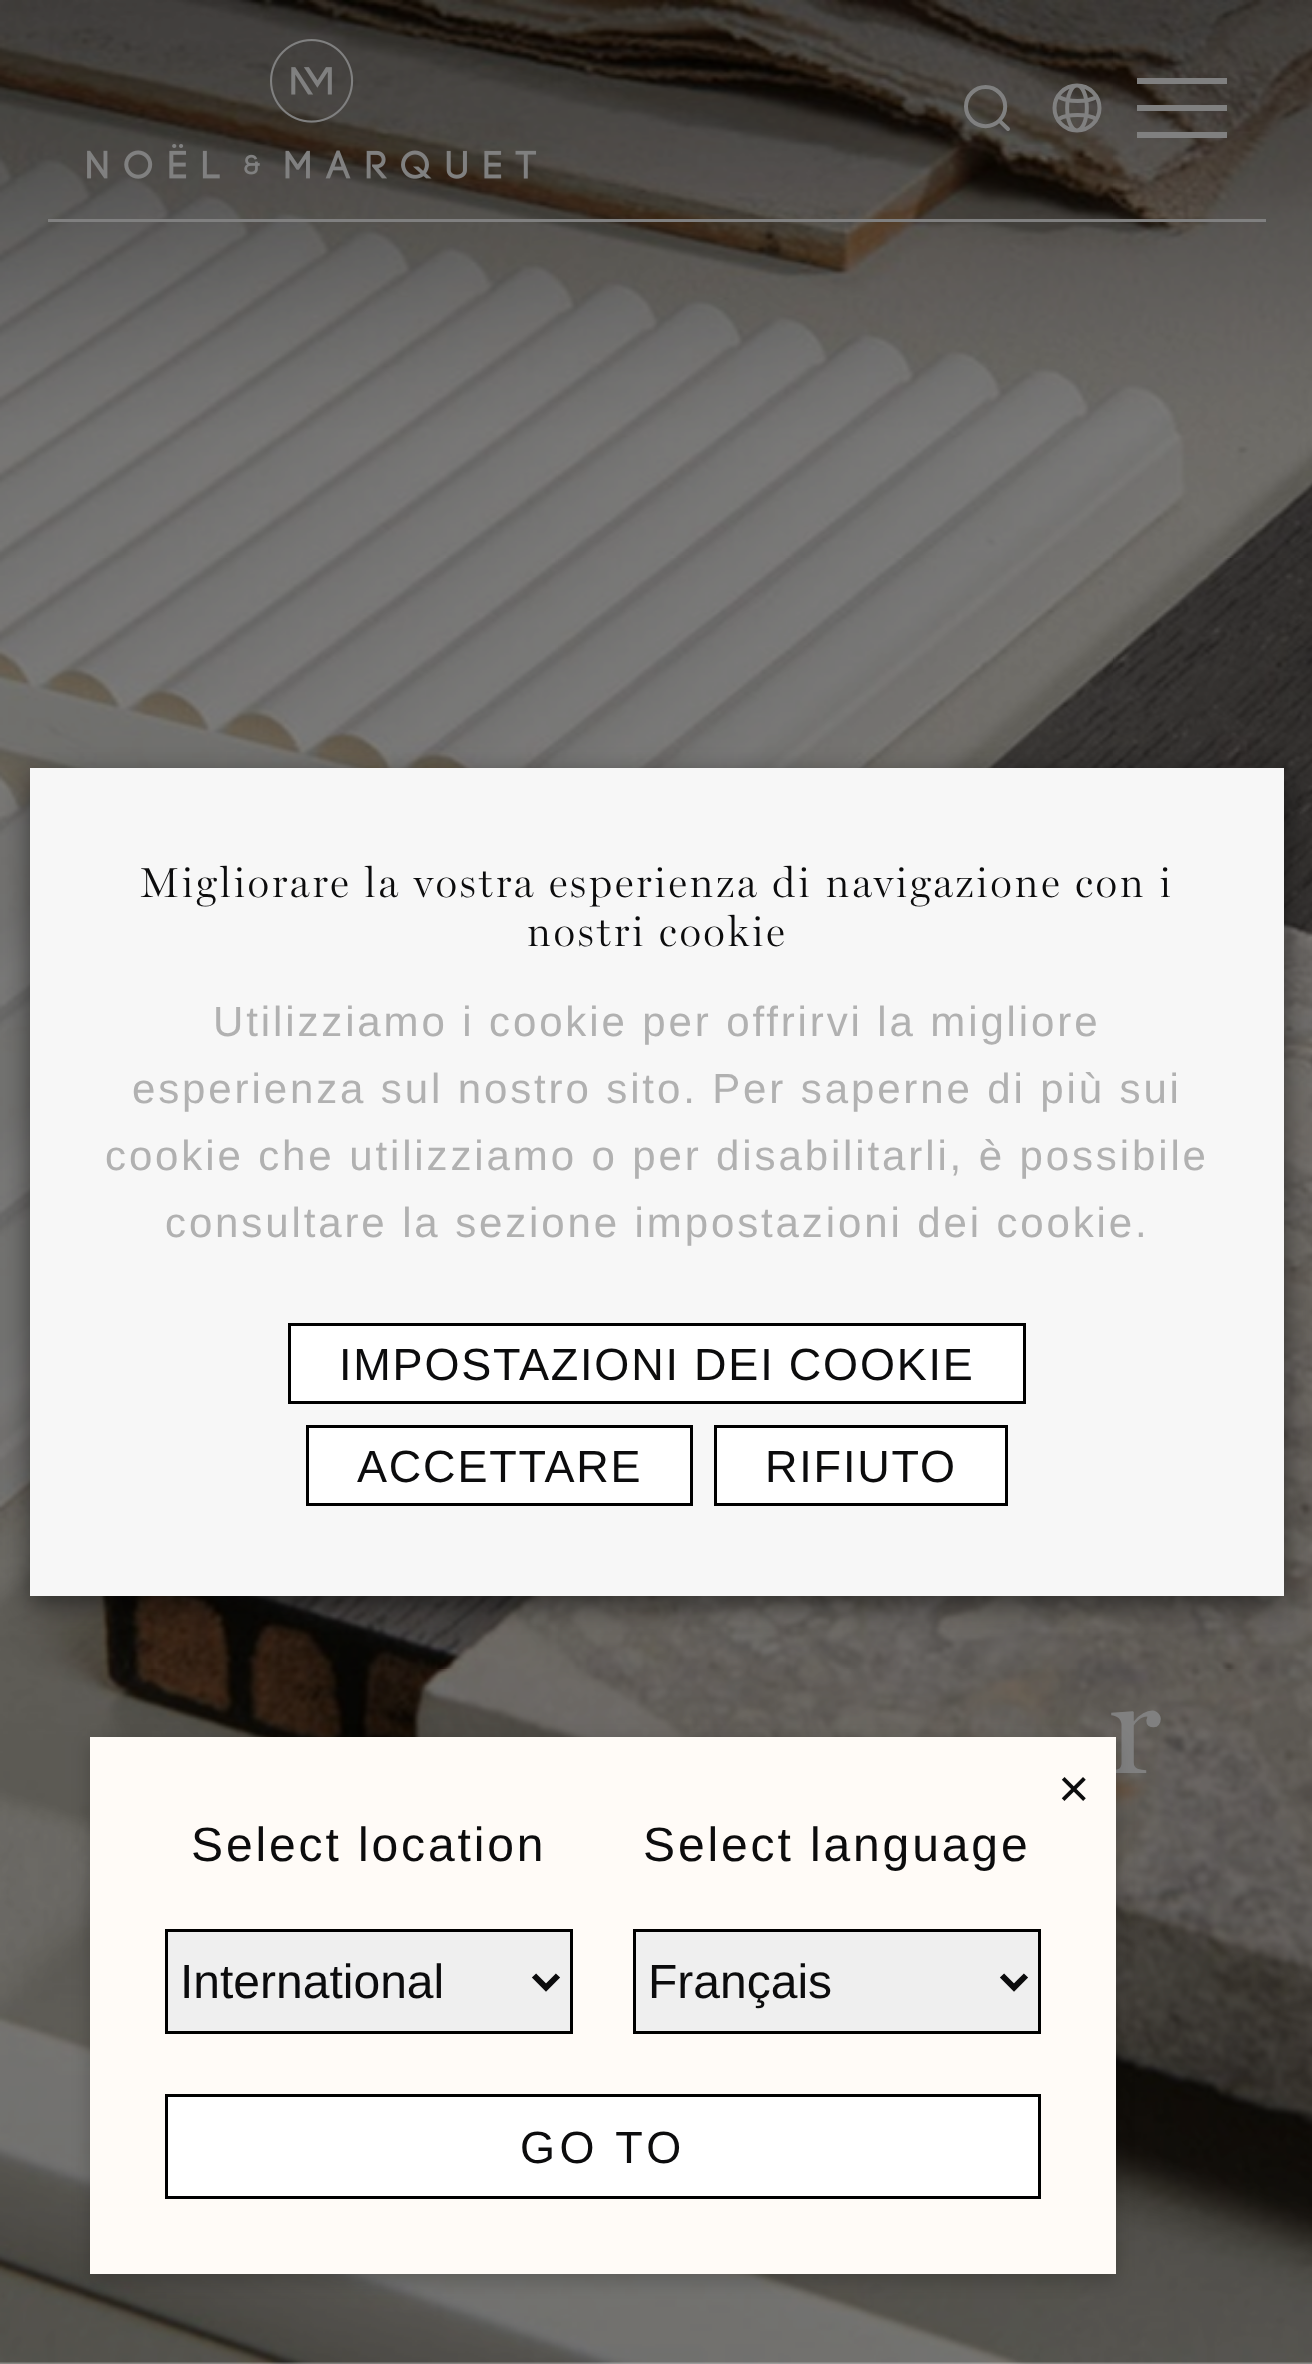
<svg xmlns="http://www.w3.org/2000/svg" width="1312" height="2364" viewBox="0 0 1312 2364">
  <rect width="100%" height="100%" fill="rgb(255,255,255)"/>
  <image x="0" y="0" width="1312" height="2364" href="pic4.png"/>
  <rect x="48" y="219" width="1218" height="3" fill="rgb(128,128,128)"/>
  <image x="87" y="39" width="450" height="140" href="pic1.png"/>
  <image x="964" y="85" width="46" height="46" href="pic2.png"/>
  <image x="1052" y="83" width="50" height="50" href="pic3.png"/>
  <rect x="1137" y="78" width="90" height="6" fill="rgb(128,128,128)"/>
  <rect x="1137" y="105" width="90" height="6" fill="rgb(128,128,128)"/>
  <rect x="1137" y="132" width="90" height="6" fill="rgb(128,128,128)"/>
  <rect x="30" y="777" width="1254" height="828" fill="rgba(0,0,0,0.5)" filter="blur(13.5px)"/>
  <rect x="30" y="768" width="1254" height="828" fill="rgb(247,247,247)"/>
  <g font-family="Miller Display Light" font-size="42" font-weight="300" letter-spacing="2.88" fill="rgb(12,12,13)">
    <text x="140" y="897">Migliorare la vostra esperienza di navigazione con i</text>
    <text x="527" y="946">nostri cookie</text>
  </g>
  <g font-family="Liberation Sans" font-size="42" letter-spacing="2.88" fill="rgb(177,177,177)">
    <text x="213" y="1036">Utilizziamo i cookie per offrirvi la migliore</text>
    <text x="132" y="1103">esperienza sul nostro sito. Per saperne di più sui</text>
    <text x="105" y="1170">cookie che utilizziamo o per disabilitarli, è possibile</text>
    <text x="165" y="1237">consultare la sezione impostazioni dei cookie.</text>
  </g>
  <rect x="289.5" y="1324.5" width="735" height="78" fill="none" stroke="rgb(0,0,0)" stroke-width="3"/>
  <rect x="291" y="1326" width="732" height="75" fill="rgb(255,255,255)"/>
  <text x="339" y="1380" font-family="Liberation Sans" font-size="45" letter-spacing="1.8" fill="rgb(12,12,13)">IMPOSTAZIONI DEI COOKIE</text>
  <rect x="307.5" y="1426.5" width="384" height="78" fill="rgb(255,255,255)" stroke="rgb(0,0,0)" stroke-width="3"/>
  <text x="357" y="1482" font-family="Liberation Sans" font-size="45" letter-spacing="1.8" fill="rgb(12,12,13)">ACCETTARE</text>
  <rect x="715.5" y="1426.5" width="291" height="78" fill="rgb(255,255,255)" stroke="rgb(0,0,0)" stroke-width="3"/>
  <text x="765" y="1482" font-family="Liberation Sans" font-size="45" letter-spacing="1.8" fill="rgb(12,12,13)">RIFIUTO</text>
  <text x="1108" y="1773" font-family="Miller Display" font-size="135" letter-spacing="2.88" fill="rgb(128,128,128)">r</text>
  <rect x="90" y="1743" width="1026" height="537" fill="rgba(0,0,0,0.2)" filter="blur(9px)"/>
  <rect x="90" y="1737" width="1026" height="537" fill="rgb(255,251,247)"/>
  <text x="1058" y="1807" font-family="Liberation Sans" font-size="54" letter-spacing="2.88" fill="rgb(12,12,13)">×</text>
  <text x="191" y="1861" font-family="Liberation Sans" font-size="48" letter-spacing="2.88" fill="rgb(12,12,13)">Select location</text>
  <rect x="166.5" y="1930.5" width="405" height="102" fill="rgb(239,239,239)" stroke="rgb(0,0,0)" stroke-width="3"/>
  <path d="M534 1975.5L546 1987.5L558 1975.5" fill="none" stroke="rgb(12,12,13)" stroke-width="6"/>
  <text x="180" y="1998" font-family="Liberation Sans" font-size="48" fill="rgb(12,12,13)">International</text>
  <text x="643" y="1861" font-family="Liberation Sans" font-size="48" letter-spacing="2.88" fill="rgb(12,12,13)">Select language</text>
  <rect x="634.5" y="1930.5" width="405" height="102" fill="rgb(239,239,239)" stroke="rgb(0,0,0)" stroke-width="3"/>
  <path d="M1002 1975.5L1014 1987.5L1026 1975.5" fill="none" stroke="rgb(12,12,13)" stroke-width="6"/>
  <text x="648" y="1998" font-family="Liberation Sans" font-size="48" fill="rgb(12,12,13)">Français</text>
  <rect x="166.5" y="2095.5" width="873" height="102" fill="rgb(255,255,255)" stroke="rgb(0,0,0)" stroke-width="3"/>
  <text x="520" y="2163" font-family="Liberation Sans" font-size="45" letter-spacing="4.5" fill="rgb(12,12,13)">GO TO</text>
</svg>
